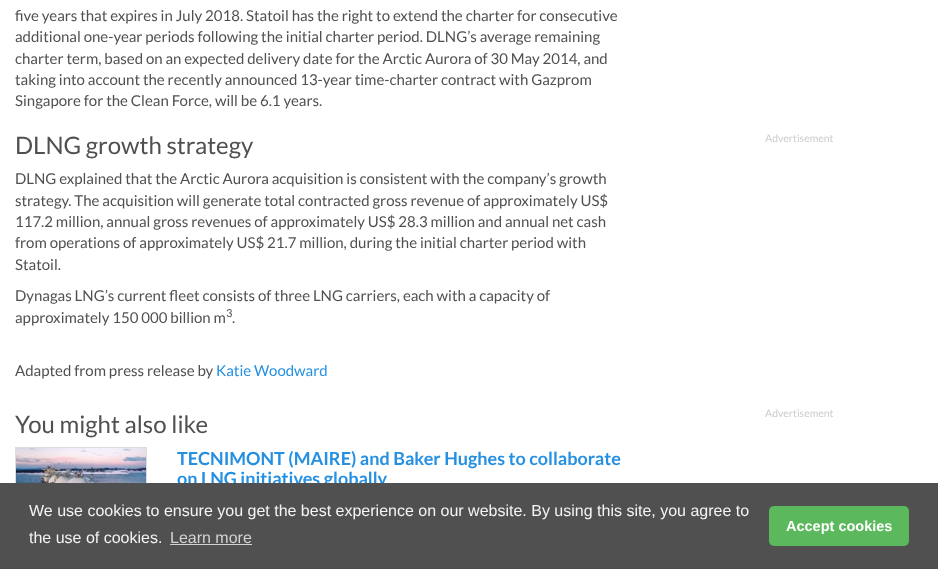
<svg xmlns="http://www.w3.org/2000/svg" width="938" height="569" viewBox="0 0 938 569">
  <rect width="100%" height="100%" fill="rgb(255,255,255)"/>
  <g font-family="Lato" font-size="15" fill="rgb(80,80,80)">
    <text>
      <tspan x="15" y="21">five years that expires in July 2018. Statoil has the right to extend the charter for consecutive</tspan>
      <tspan x="15" y="42">additional one-year periods following the initial charter period. DLNG’s average remaining</tspan>
      <tspan x="15" y="64">charter term, based on an expected delivery date for the Arctic Aurora of 30 May 2014, and</tspan>
      <tspan x="15" y="85">taking into account the recently announced 13-year time-charter contract with Gazprom</tspan>
      <tspan x="15" y="106">Singapore for the Clean Force, will be 6.1 years.</tspan>
    </text>
  </g>
  <text x="15" y="154" font-family="Lato" font-size="24" fill="rgb(80,80,80)">DLNG growth strategy</text>
  <g font-family="Lato" font-size="15" fill="rgb(80,80,80)">
    <text>
      <tspan x="15" y="184">DLNG explained that the Arctic Aurora acquisition is consistent with the company’s growth</tspan>
      <tspan x="15" y="206">strategy. The acquisition will generate total contracted gross revenue of approximately US$</tspan>
      <tspan x="15" y="227">117.2 million, annual gross revenues of approximately US$ 28.3 million and annual net cash</tspan>
      <tspan x="15" y="248">from operations of approximately US$ 21.7 million, during the initial charter period with</tspan>
      <tspan x="15" y="270">Statoil.</tspan>
    </text>
    <text>
      <tspan x="15" y="301">Dynagas LNG’s current fleet consists of three LNG carriers, each with a capacity of</tspan>
      <tspan x="15" y="323">approximately 150 000 billion m</tspan>
    </text>
  </g>
  <text x="226" y="317" font-family="Lato" font-size="11" fill="rgb(80,80,80)">3</text>
  <g font-family="Lato" font-size="15" fill="rgb(80,80,80)">
    <text x="232" y="323">.</text>
    <text x="15" y="376">Adapted from press release by</text>
  </g>
  <text x="216" y="376" font-family="Lato" font-size="15" fill="rgb(37,144,225)">Katie Woodward</text>
  <text x="15" y="433" font-family="Lato" font-size="24" fill="rgb(80,80,80)">You might also like</text>
  <rect x="15.5" y="447.5" width="131" height="88" fill="none" stroke="rgb(221,221,221)"/>
  <image x="16" y="448" width="130" height="35" href="pic1.png"/>
  <g font-family="Lato" font-size="18" font-weight="bold" fill="rgb(37,144,225)">
    <text>
      <tspan x="177" y="465">TECNIMONT (MAIRE) and Baker Hughes to collaborate</tspan>
      <tspan x="177" y="485">on LNG initiatives globally</tspan>
    </text>
  </g>
  <g font-family="Lato" font-size="10.5" fill="rgb(204,204,204)">
    <text x="765" y="142">Advertisement</text>
    <text x="765" y="417">Advertisement</text>
  </g>
  <rect x="0" y="483" width="938" height="86" fill="rgb(80,80,80)"/>
  <g font-family="Liberation Sans" font-size="16" fill="rgb(244,244,244)">
    <text>
      <tspan x="29" y="516">We use cookies to ensure you get the best experience on our website. By using this site, you agree to</tspan>
      <tspan x="29" y="543">the use of cookies.</tspan>
    </text>
  </g>
  <text x="170" y="543" font-family="Liberation Sans" font-size="16" fill="rgb(211,211,211)">Learn more</text>
  <rect x="170" y="544" width="82" height="1" fill="rgb(211,211,211)"/>
  <rect x="769" y="506" width="140" height="40" rx="5" fill="rgb(92,184,92)"/>
  <text x="786" y="531" font-family="Liberation Sans" font-size="14.5" font-weight="bold" fill="rgb(255,255,255)">Accept cookies</text>
</svg>
